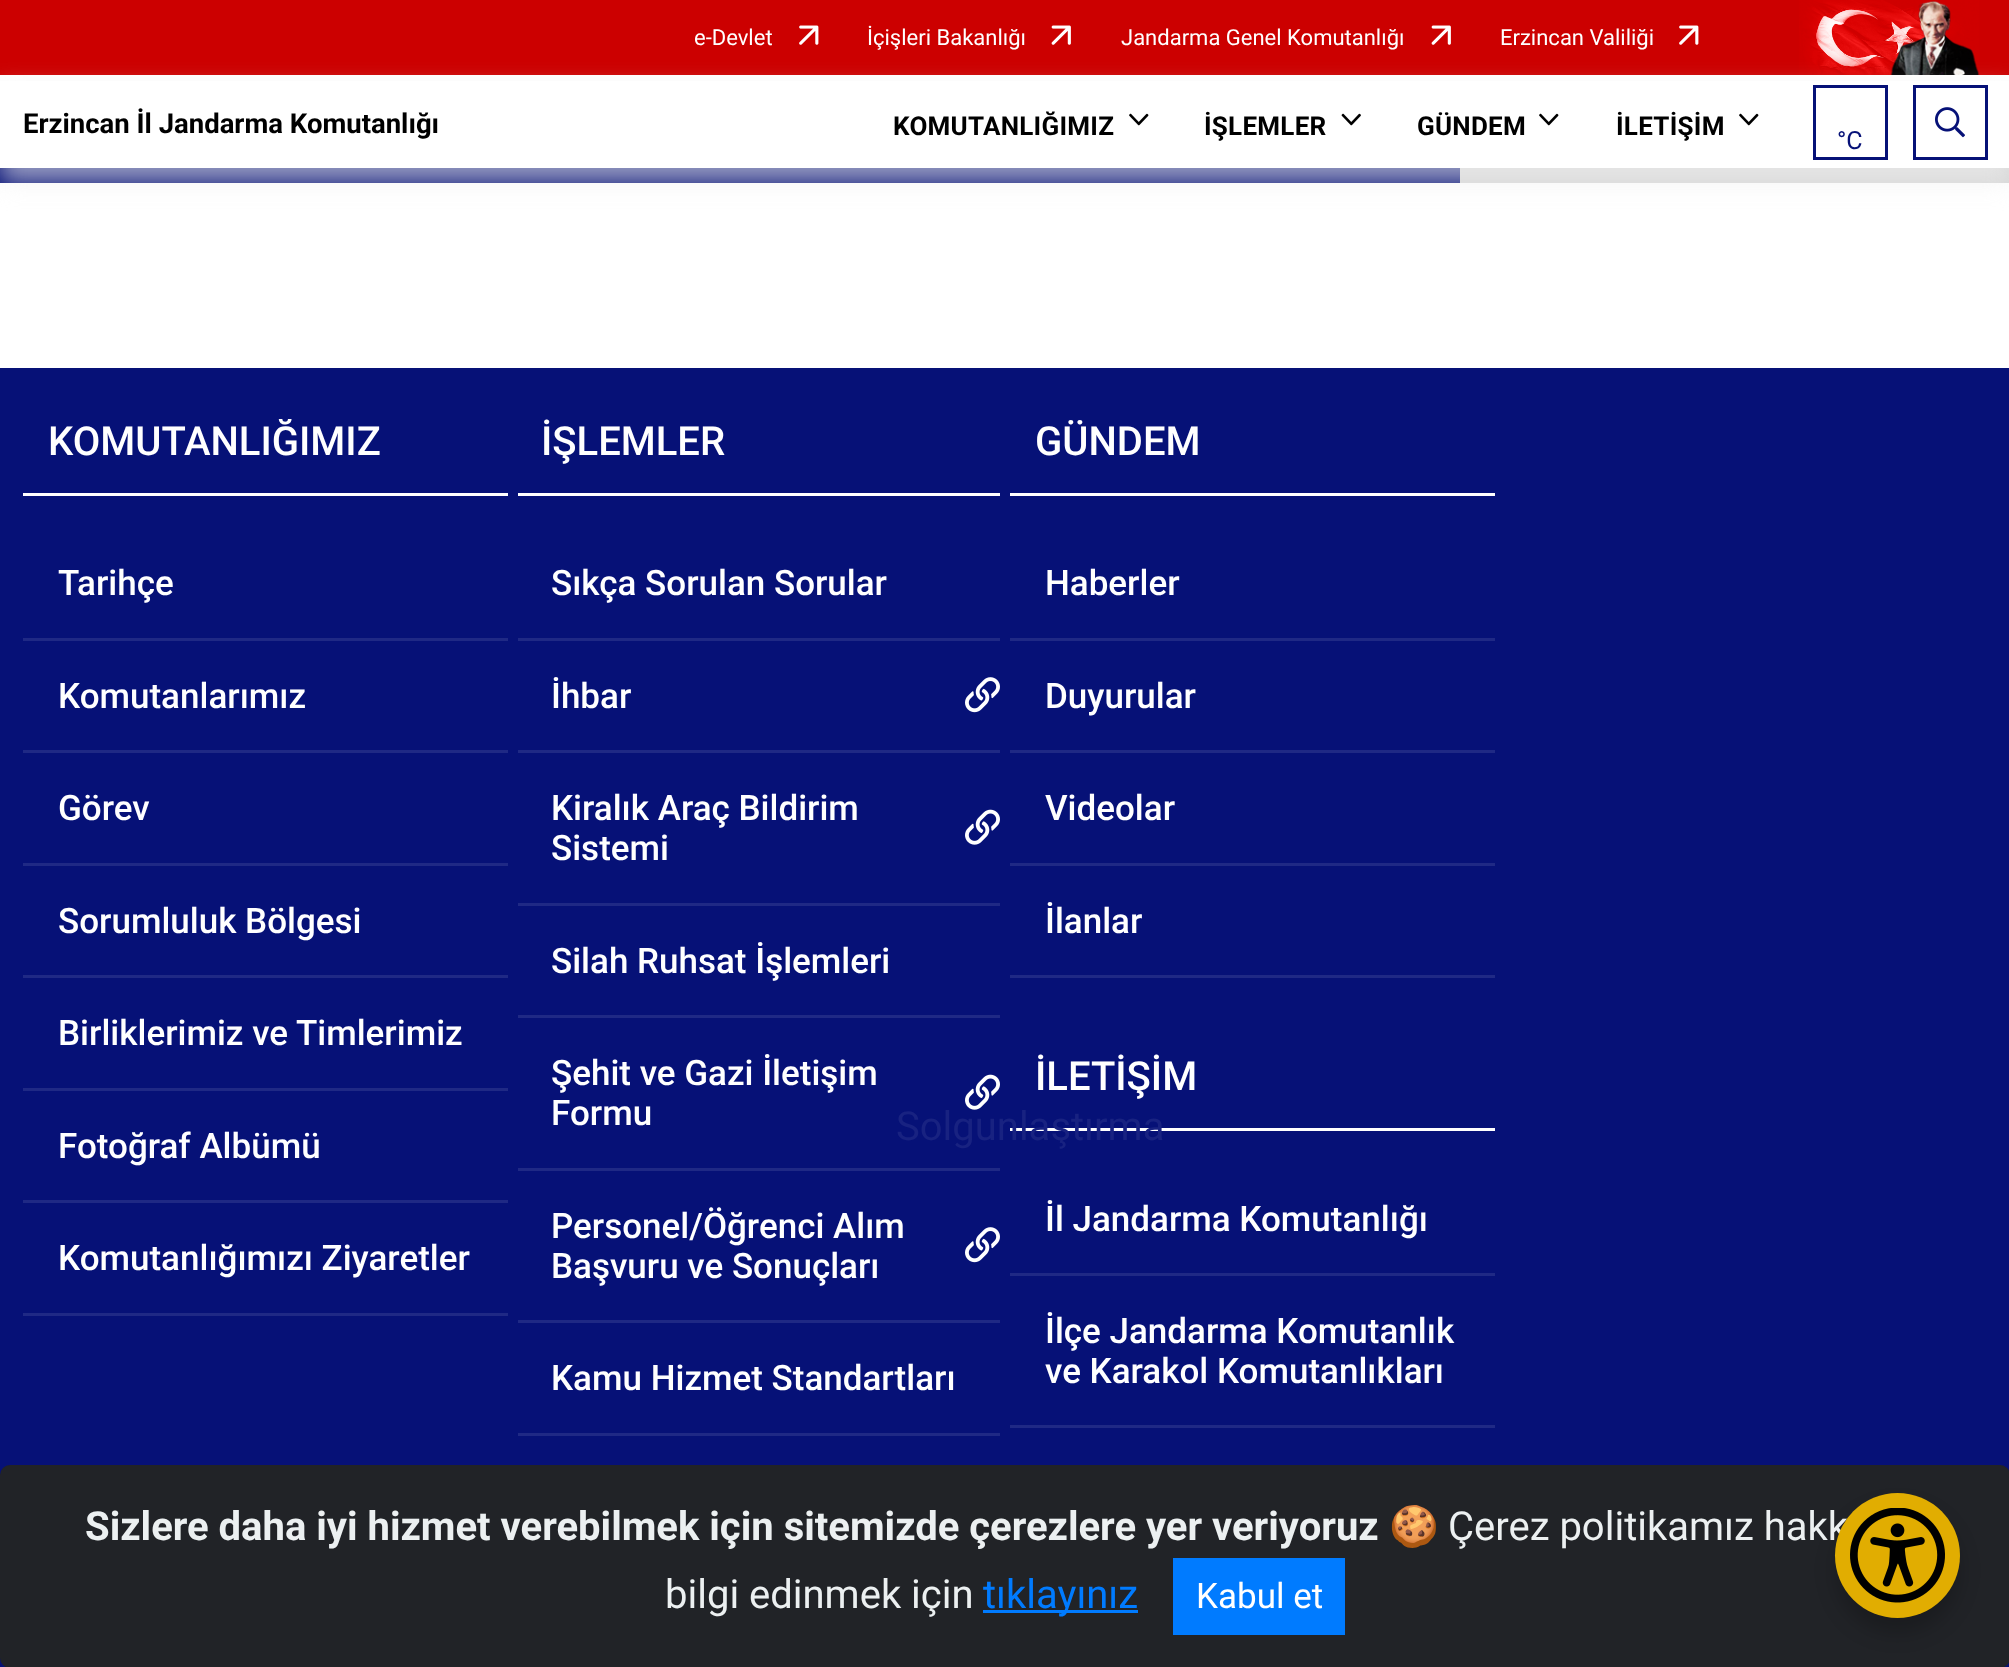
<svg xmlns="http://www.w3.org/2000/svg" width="2009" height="1667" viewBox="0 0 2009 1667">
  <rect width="100%" height="100%" fill="rgb(255,255,255)"/>
  <rect x="0" y="0" width="2009" height="75" fill="rgb(204,0,0)"/>
  <text x="694" y="45" font-family="Roboto" font-size="22" fill="rgb(255,255,255)">e-Devlet</text>
  <image x="799" y="25" width="20" height="20" href="pic1.png"/>
  <text x="867" y="45" font-family="Roboto" font-size="22" fill="rgb(255,255,255)">İçişleri Bakanlığı</text>
  <image x="1051" y="25" width="20" height="20" href="pic2.png"/>
  <text x="1121" y="45" font-family="Roboto" font-size="22" fill="rgb(255,255,255)">Jandarma Genel Komutanlığı</text>
  <image x="1431" y="25" width="20" height="20" href="pic2.png"/>
  <text x="1500" y="45" font-family="Roboto" font-size="22" fill="rgb(255,255,255)">Erzincan Valiliği</text>
  <image x="1679" y="25" width="20" height="20" href="pic1.png"/>
  <image x="1799" y="0" width="181" height="75" href="pic3.png"/>
  <rect x="1460" y="168" width="549" height="15" fill="rgb(215,215,215)"/>
  <rect x="0" y="168" width="1460" height="15" fill="rgb(6,17,119)"/>
  <rect x="0" y="90" width="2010" height="93" fill="rgba(238,238,238,0.62)" filter="blur(12.5px)"/>
  <rect x="0" y="81" width="2009" height="87" fill="rgb(255,255,255)"/>
  <text x="23" y="133" font-family="Roboto" font-size="27.5" font-weight="bold" fill="rgb(0,0,0)">Erzincan İl Jandarma Komutanlığı</text>
  <text x="893" y="135" font-family="Roboto" font-size="26" font-weight="bold" letter-spacing="0.25" fill="rgb(0,0,0)">KOMUTANLIĞIMIZ</text>
  <image x="1129" y="113" width="20" height="13" href="pic4.png"/>
  <text x="1204" y="135" font-family="Roboto" font-size="26" font-weight="bold" letter-spacing="0.25" fill="rgb(0,0,0)">İŞLEMLER</text>
  <image x="1341" y="113" width="20" height="13" href="pic5.png"/>
  <text x="1417" y="135" font-family="Roboto" font-size="26" font-weight="bold" letter-spacing="0.25" fill="rgb(0,0,0)">GÜNDEM</text>
  <image x="1539" y="113" width="20" height="13" href="pic4.png"/>
  <text x="1616" y="135" font-family="Roboto" font-size="26" font-weight="bold" letter-spacing="0.25" fill="rgb(0,0,0)">İLETİŞİM</text>
  <image x="1739" y="113" width="20" height="13" href="pic4.png"/>
  <rect x="1814.5" y="86.5" width="72" height="72" fill="none" stroke="rgb(6,17,119)" stroke-width="3"/>
  <text x="1837" y="149" font-family="Roboto" font-size="25" fill="rgb(6,17,119)">°C</text>
  <rect x="1914.5" y="86.5" width="72" height="72" fill="none" stroke="rgb(6,17,119)" stroke-width="3"/>
  <image x="1935" y="107" width="30" height="31" href="pic6.png"/>
  <rect x="0" y="368" width="2009" height="1299" fill="rgb(6,17,119)"/>
  <rect x="23" y="493" width="485" height="3" fill="rgb(255,255,255)"/>
  <text x="48" y="455" font-family="Roboto" font-size="40" font-weight="500" fill="rgb(255,255,255)">KOMUTANLIĞIMIZ</text>
  <rect x="23" y="638" width="485" height="3" fill="rgb(31,41,133)"/>
  <text x="58" y="595" font-family="Roboto" font-size="35" font-weight="500" fill="rgb(255,255,255)">Tarihçe</text>
  <rect x="23" y="750" width="485" height="3" fill="rgb(31,41,133)"/>
  <text x="58" y="708" font-family="Roboto" font-size="35" font-weight="500" fill="rgb(255,255,255)">Komutanlarımız</text>
  <rect x="23" y="863" width="485" height="3" fill="rgb(31,41,133)"/>
  <text x="58" y="820" font-family="Roboto" font-size="35" font-weight="500" fill="rgb(255,255,255)">Görev</text>
  <rect x="23" y="975" width="485" height="3" fill="rgb(31,41,133)"/>
  <text x="58" y="933" font-family="Roboto" font-size="35" font-weight="500" fill="rgb(255,255,255)">Sorumluluk Bölgesi</text>
  <rect x="23" y="1088" width="485" height="3" fill="rgb(31,41,133)"/>
  <text x="58" y="1045" font-family="Roboto" font-size="35" font-weight="500" fill="rgb(255,255,255)">Birliklerimiz ve Timlerimiz</text>
  <rect x="23" y="1200" width="485" height="3" fill="rgb(31,41,133)"/>
  <text x="58" y="1158" font-family="Roboto" font-size="35" font-weight="500" fill="rgb(255,255,255)">Fotoğraf Albümü</text>
  <rect x="23" y="1313" width="485" height="3" fill="rgb(31,41,133)"/>
  <text x="58" y="1270" font-family="Roboto" font-size="35" font-weight="500" fill="rgb(255,255,255)">Komutanlığımızı Ziyaretler</text>
  <rect x="518" y="493" width="482" height="3" fill="rgb(255,255,255)"/>
  <text x="541" y="455" font-family="Roboto" font-size="40" font-weight="500" fill="rgb(255,255,255)">İŞLEMLER</text>
  <rect x="518" y="638" width="482" height="3" fill="rgb(31,41,133)"/>
  <text x="551" y="595" font-family="Roboto" font-size="35" font-weight="500" fill="rgb(255,255,255)">Sıkça Sorulan Sorular</text>
  <rect x="518" y="750" width="482" height="3" fill="rgb(31,41,133)"/>
  <text x="551" y="708" font-family="Roboto" font-size="35" font-weight="500" fill="rgb(255,255,255)">İhbar</text>
  <image x="965" y="677" width="35" height="36" href="pic7.png"/>
  <rect x="518" y="903" width="482" height="3" fill="rgb(31,41,133)"/>
  <text x="551" y="820" font-family="Roboto" font-size="35" font-weight="500" fill="rgb(255,255,255)">Kiralık Araç Bildirim</text>
  <image x="965" y="809" width="35" height="36" href="pic8.png"/>
  <text x="551" y="860" font-family="Roboto" font-size="35" font-weight="500" fill="rgb(255,255,255)">Sistemi</text>
  <rect x="518" y="1015" width="482" height="3" fill="rgb(31,41,133)"/>
  <text x="551" y="973" font-family="Roboto" font-size="35" font-weight="500" fill="rgb(255,255,255)">Silah Ruhsat İşlemleri</text>
  <rect x="518" y="1168" width="482" height="3" fill="rgb(31,41,133)"/>
  <text x="551" y="1085" font-family="Roboto" font-size="35" font-weight="500" fill="rgb(255,255,255)">Şehit ve Gazi İletişim</text>
  <image x="965" y="1074" width="35" height="36" href="pic8.png"/>
  <text x="551" y="1125" font-family="Roboto" font-size="35" font-weight="500" fill="rgb(255,255,255)">Formu</text>
  <rect x="518" y="1320" width="482" height="3" fill="rgb(31,41,133)"/>
  <text x="551" y="1238" font-family="Roboto" font-size="35" font-weight="500" fill="rgb(255,255,255)">Personel/Öğrenci Alım</text>
  <image x="965" y="1227" width="35" height="36" href="pic7.png"/>
  <text x="551" y="1278" font-family="Roboto" font-size="35" font-weight="500" fill="rgb(255,255,255)">Başvuru ve Sonuçları</text>
  <rect x="518" y="1433" width="482" height="3" fill="rgb(31,41,133)"/>
  <text x="551" y="1390" font-family="Roboto" font-size="35" font-weight="500" fill="rgb(255,255,255)">Kamu Hizmet Standartları</text>
  <rect x="1010" y="493" width="485" height="3" fill="rgb(255,255,255)"/>
  <text x="1035" y="455" font-family="Roboto" font-size="40" font-weight="500" fill="rgb(255,255,255)">GÜNDEM</text>
  <rect x="1010" y="638" width="485" height="3" fill="rgb(31,41,133)"/>
  <text x="1045" y="595" font-family="Roboto" font-size="35" font-weight="500" fill="rgb(255,255,255)">Haberler</text>
  <rect x="1010" y="750" width="485" height="3" fill="rgb(31,41,133)"/>
  <text x="1045" y="708" font-family="Roboto" font-size="35" font-weight="500" fill="rgb(255,255,255)">Duyurular</text>
  <rect x="1010" y="863" width="485" height="3" fill="rgb(31,41,133)"/>
  <text x="1045" y="820" font-family="Roboto" font-size="35" font-weight="500" fill="rgb(255,255,255)">Videolar</text>
  <rect x="1010" y="975" width="485" height="3" fill="rgb(31,41,133)"/>
  <text x="1045" y="933" font-family="Roboto" font-size="35" font-weight="500" fill="rgb(255,255,255)">İlanlar</text>
  <rect x="1010" y="1128" width="485" height="3" fill="rgb(255,255,255)"/>
  <text x="1035" y="1090" font-family="Roboto" font-size="40" font-weight="500" fill="rgb(255,255,255)">İLETİŞİM</text>
  <rect x="1010" y="1273" width="485" height="3" fill="rgb(31,41,133)"/>
  <text x="1045" y="1231" font-family="Roboto" font-size="35" font-weight="500" fill="rgb(255,255,255)">İl Jandarma Komutanlığı</text>
  <rect x="1010" y="1425" width="485" height="3" fill="rgb(31,41,133)"/>
  <g font-family="Roboto" font-size="35" font-weight="500" fill="rgb(255,255,255)">
    <text>
      <tspan x="1045" y="1343">İlçe Jandarma Komutanlık</tspan>
      <tspan x="1045" y="1383">ve Karakol Komutanlıkları</tspan>
    </text>
  </g>
  <text x="896" y="1140" font-family="Roboto" font-size="40" fill="rgb(24,34,129)">Solgunlaştırma</text>
  <rect x="0" y="1465" width="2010" height="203" rx="10" fill="rgb(33,35,39)"/>
  <rect x="1835" y="1508" width="125" height="125" rx="62.5" fill="rgba(0,0,0,0.2)" filter="blur(10px)"/>
  <text x="1448" y="1540" font-family="Roboto" font-size="40" fill="rgb(236,240,241)">Çerez politikamız hakk</text>
  <circle cx="1897.5" cy="1555.5" r="62.5" fill="rgb(225,173,1)"/>
  <image x="1850" y="1508" width="95" height="95" href="pic9.png"/>
  <text x="85" y="1540" font-family="Roboto" font-size="40" font-weight="bold" fill="rgb(236,240,241)">Sizlere daha iyi hizmet verebilmek için sitemizde çerezlere yer veriyoruz</text>
  <text x="1389" y="1540" font-family="Noto Color Emoji" font-size="40" fill="rgb(236,240,241)">🍪</text>
  <text x="665" y="1608" font-family="Roboto" font-size="40" fill="rgb(236,240,241)">bilgi edinmek için</text>
  <rect x="983" y="1610" width="155" height="3" fill="rgb(0,123,255)"/>
  <text x="983" y="1608" font-family="Roboto" font-size="40" fill="rgb(0,123,255)">tıklayınız</text>
  <rect x="1173" y="1558" width="172" height="77" fill="rgb(0,123,255)"/>
  <text x="1196" y="1608" font-family="Roboto" font-size="35" fill="rgb(255,255,255)">Kabul et</text>
</svg>
